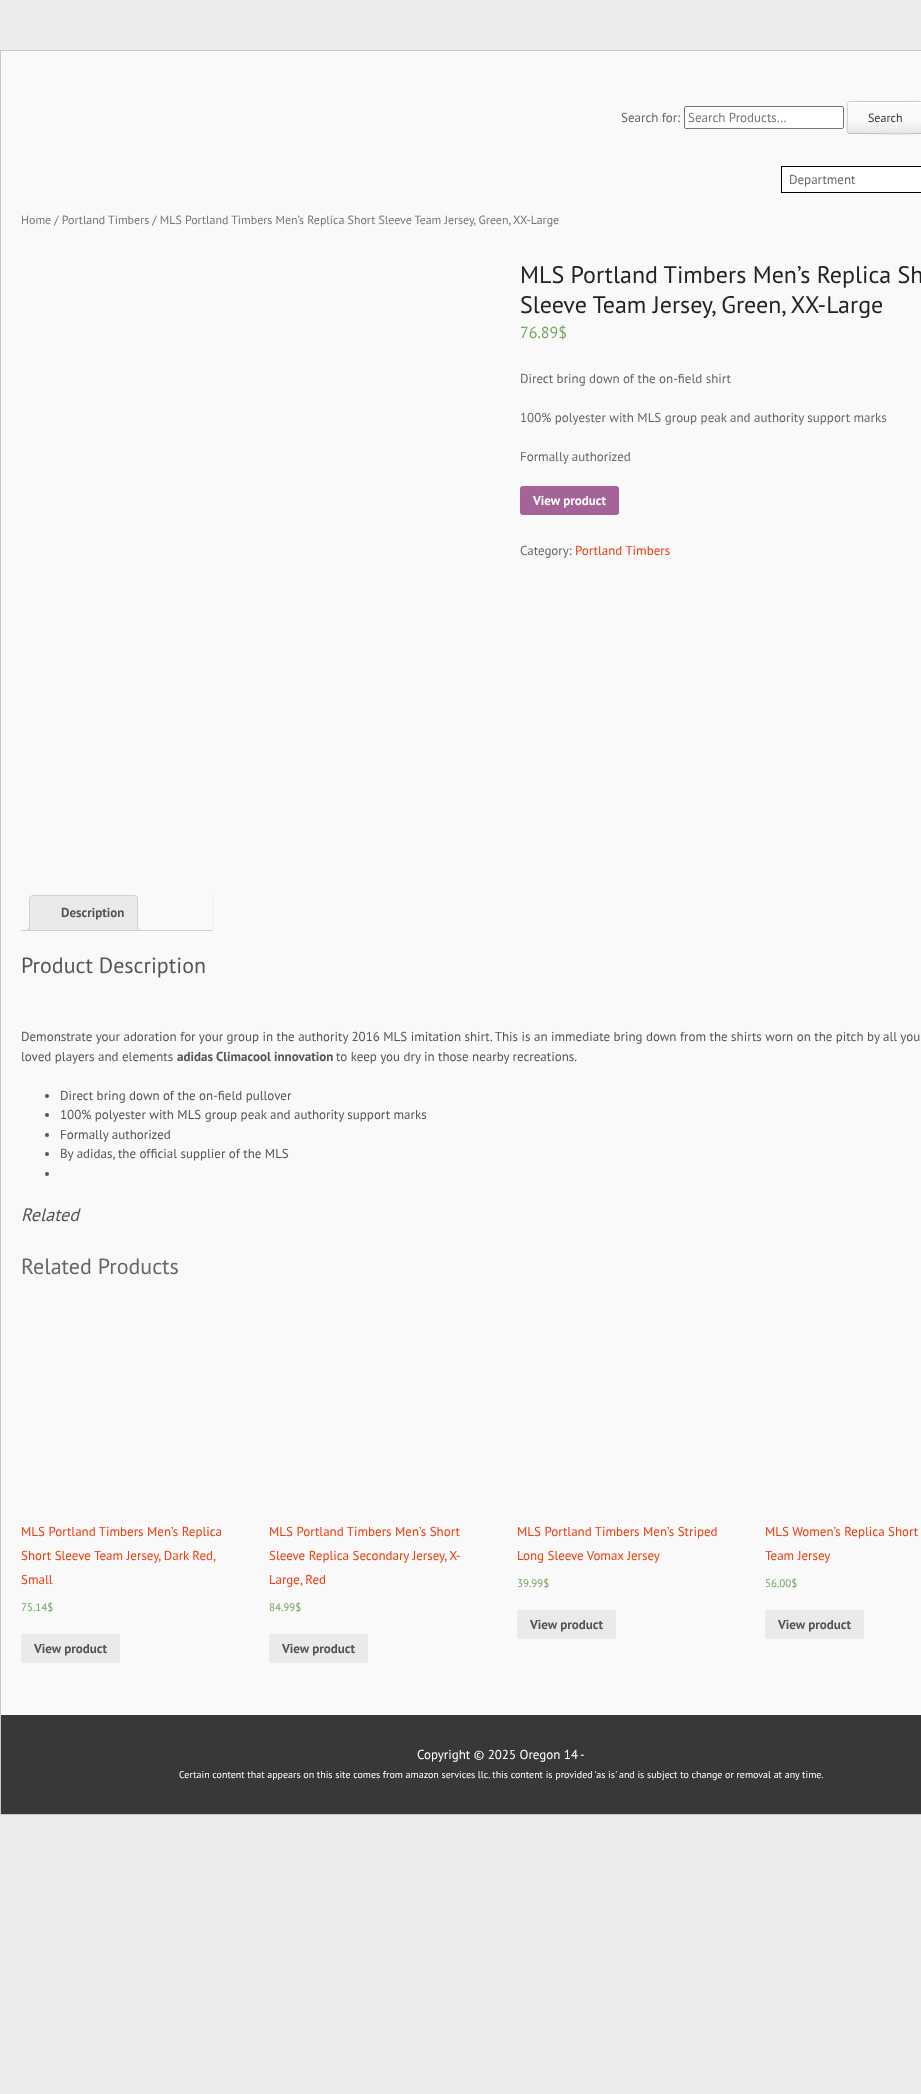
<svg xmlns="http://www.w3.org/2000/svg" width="921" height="2094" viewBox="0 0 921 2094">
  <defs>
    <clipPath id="clip1"><rect x="847" y="101" width="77" height="33" rx="3"/></clipPath>
    <linearGradient id="g1" gradientUnits="userSpaceOnUse" x1="886" y1="71" x2="886" y2="102"><stop offset="0.6" stop-color="rgb(250,250,250)"/><stop offset="1" stop-color="rgb(230,230,230)"/></linearGradient>
    <linearGradient id="g2" gradientUnits="userSpaceOnUse" x1="886" y1="102" x2="886" y2="133"><stop offset="0.6" stop-color="rgb(250,250,250)"/><stop offset="1" stop-color="rgb(230,230,230)"/></linearGradient>
    <clipPath id="clip2"><rect x="21" y="895" width="191" height="36"/></clipPath>
  </defs>
  <rect width="100%" height="100%" fill="rgb(236,236,236)"/>
  <rect x="1" y="51" width="920" height="1664" fill="rgb(249,249,249)"/>
  <rect x="0.5" y="50.5" width="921" height="1764" fill="none" stroke="rgb(204,200,193)"/>
  <text x="621" y="122" font-family="PT Sans" font-size="13" fill="rgb(102,102,102)">Search for:</text>
  <rect x="684.5" y="106.5" width="159" height="22" rx="1.5" fill="rgb(255,255,255)" stroke="rgb(118,118,118)"/>
  <text x="688" y="122" font-family="PT Sans" font-size="13" fill="rgb(117,117,117)">Search Products…</text>
  <g clip-path="url(#clip1)">
    <rect x="847" y="101" width="74" height="1" fill="url(#g1)"/>
    <rect x="847" y="102" width="74" height="31" fill="url(#g2)"/>
  </g>
  <path d="M850 104H921C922 104 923 105 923 106C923 99 917 102 909 102H862C854 102 848 99 848 106C848 105 849 104 850 104Z" fill="rgb(255,255,255)"/>
  <path d="M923 133H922.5C920.5 134.5 868.5 133.5 862 133.5H850L848 133" fill="none" stroke="rgb(187,187,187)"/>
  <path d="M848 133C846.5 131 847.5 120 847.5 117.5C847.5 99 844 101.5 862 101.5H909C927 101.5 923.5 99 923.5 117.5C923.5 120 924.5 131 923 133" fill="none" stroke="rgb(204,204,204)"/>
  <text x="868" y="122" font-family="PT Sans" font-size="12" fill="rgb(50,50,50)">Search</text>
  <rect x="781.5" y="166.5" width="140" height="26" fill="rgb(255,255,255)" stroke="rgb(0,0,0)"/>
  <text x="789" y="184" font-family="PT Sans" font-size="13" fill="rgb(102,102,102)">Department</text>
  <text x="21" y="224" font-family="PT Sans" font-size="11.95" fill="rgb(117,117,117)">Home / Portland Timbers / MLS Portland Timbers Men’s Replica Short Sleeve Team Jersey, Green, XX-Large</text>
  <g font-family="PT Sans" font-size="24" fill="rgb(34,34,34)">
    <text>
      <tspan x="520" y="283">MLS Portland Timbers Men’s Replica Sh</tspan>
      <tspan x="520" y="313">Sleeve Team Jersey, Green, XX-Large</tspan>
    </text>
  </g>
  <text x="520" y="338" font-family="PT Sans" font-size="16" fill="rgb(119,164,100)">76.89$</text>
  <g font-family="PT Sans" font-size="13" fill="rgb(102,102,102)">
    <text x="520" y="383">Direct bring down of the on-field shirt</text>
    <text x="520" y="422">100% polyester with MLS group peak and authority support marks</text>
    <text x="520" y="461">Formally authorized</text>
  </g>
  <rect x="520" y="486" width="99" height="29" rx="3" fill="rgb(164,100,151)"/>
  <text x="533" y="505" font-family="PT Sans" font-size="13" font-weight="bold" fill="rgb(255,255,255)">View product</text>
  <text x="520" y="555" font-family="PT Sans" font-size="13" fill="rgb(102,102,102)">Category:</text>
  <text x="575" y="555" font-family="PT Sans" font-size="13" fill="rgb(238,59,10)">Portland Timbers</text>
  <rect x="212" y="895" width="1" height="36" fill="rgb(238,238,238)"/>
  <path d="M33 895.5H134C136 895.5 137.5 897 137.5 899V930.5H29.5V899C29.5 897 31 895.5 33 895.5Z" fill="rgb(235,233,235)" stroke="rgb(211,206,210)"/>
  <rect x="43" y="929" width="81" height="1" fill="rgb(238,238,238)"/>
  <text x="61" y="917" font-family="PT Sans" font-size="13" font-weight="bold" fill="rgb(85,85,85)">Description</text>
  <g clip-path="url(#clip2)">
    <path d="M26 931V933C31 933 32 932 32 927H30C30 929 28 931 26 931Z" fill="rgb(235,233,235)"/>
  </g>
  <path d="M24 925H30C30 930 29 931 24 931ZM24 925H29C29 929 28 930 24 930Z" fill="rgb(211,206,210)" fill-rule="evenodd"/>
  <g clip-path="url(#clip2)">
    <path d="M135 927C135 932 136 933 141 933V931C139 931 137 929 137 927Z" fill="rgb(235,233,235)"/>
  </g>
  <path d="M137 925H143V931C140.5 931 137 930.5 137 927ZM138 925H143V930C141 930 138 930 138 927Z" fill="rgb(211,206,210)" fill-rule="evenodd"/>
  <rect x="21" y="930" width="191" height="1" fill="rgb(211,206,210)"/>
  <text x="21" y="973" font-family="PT Sans" font-size="22" fill="rgb(85,85,85)">Product Description</text>
  <g font-family="PT Sans" font-size="13" fill="rgb(85,85,85)">
    <text>
      <tspan x="21" y="1041">Demonstrate your adoration for your group in the authority 2016 MLS imitation shirt. This is an immediate bring down from the shirts worn on the pitch by all you</tspan>
      <tspan x="21" y="1061">loved players and elements</tspan>
    </text>
  </g>
  <text x="177" y="1061" font-family="PT Sans" font-size="13" font-weight="bold" fill="rgb(85,85,85)">adidas Climacool innovation</text>
  <text x="336" y="1061" font-family="PT Sans" font-size="13" fill="rgb(85,85,85)">to keep you dry in those nearby recreations.</text>
  <circle cx="47" cy="1096" r="2" fill="rgb(85,85,85)"/>
  <text x="60" y="1100" font-family="PT Sans" font-size="13" fill="rgb(85,85,85)">Direct bring down of the on-field pullover</text>
  <circle cx="47" cy="1115" r="2" fill="rgb(85,85,85)"/>
  <text x="60" y="1119" font-family="PT Sans" font-size="13" fill="rgb(85,85,85)">100% polyester with MLS group peak and authority support marks</text>
  <circle cx="47" cy="1135" r="2" fill="rgb(85,85,85)"/>
  <text x="60" y="1139" font-family="PT Sans" font-size="13" fill="rgb(85,85,85)">Formally authorized</text>
  <circle cx="47" cy="1154" r="2" fill="rgb(85,85,85)"/>
  <text x="60" y="1158" font-family="PT Sans" font-size="13" fill="rgb(85,85,85)">By adidas, the official supplier of the MLS</text>
  <circle cx="47" cy="1174" r="2" fill="rgb(85,85,85)"/>
  <text x="21" y="1221" font-family="PT Sans" font-size="18" font-style="italic" fill="rgb(85,85,85)">Related</text>
  <text x="21" y="1274" font-family="PT Sans" font-size="22" fill="rgb(102,102,102)">Related Products</text>
  <g font-family="PT Sans" font-size="13" fill="rgb(238,59,10)">
    <text>
      <tspan x="21" y="1536">MLS Portland Timbers Men’s Replica</tspan>
      <tspan x="21" y="1560">Short Sleeve Team Jersey, Dark Red,</tspan>
      <tspan x="21" y="1584">Small</tspan>
    </text>
  </g>
  <text x="21" y="1611" font-family="PT Sans" font-size="11" fill="rgb(119,164,100)">75.14$</text>
  <rect x="21" y="1634" width="99" height="29" rx="3" fill="rgb(235,233,235)"/>
  <text x="34" y="1653" font-family="PT Sans" font-size="13" font-weight="bold" fill="rgb(85,85,85)">View product</text>
  <g font-family="PT Sans" font-size="13" fill="rgb(238,59,10)">
    <text>
      <tspan x="269" y="1536">MLS Portland Timbers Men’s Short</tspan>
      <tspan x="269" y="1560">Sleeve Replica Secondary Jersey, X-</tspan>
      <tspan x="269" y="1584">Large, Red</tspan>
    </text>
  </g>
  <text x="269" y="1611" font-family="PT Sans" font-size="11" fill="rgb(119,164,100)">84.99$</text>
  <rect x="269" y="1634" width="99" height="29" rx="3" fill="rgb(235,233,235)"/>
  <text x="282" y="1653" font-family="PT Sans" font-size="13" font-weight="bold" fill="rgb(85,85,85)">View product</text>
  <g font-family="PT Sans" font-size="13" fill="rgb(238,59,10)">
    <text>
      <tspan x="517" y="1536">MLS Portland Timbers Men’s Striped</tspan>
      <tspan x="517" y="1560">Long Sleeve Vomax Jersey</tspan>
    </text>
  </g>
  <text x="517" y="1587" font-family="PT Sans" font-size="11" fill="rgb(119,164,100)">39.99$</text>
  <rect x="517" y="1610" width="99" height="29" rx="3" fill="rgb(235,233,235)"/>
  <text x="530" y="1629" font-family="PT Sans" font-size="13" font-weight="bold" fill="rgb(85,85,85)">View product</text>
  <g font-family="PT Sans" font-size="13" fill="rgb(238,59,10)">
    <text>
      <tspan x="765" y="1536">MLS Women’s Replica Short</tspan>
      <tspan x="765" y="1560">Team Jersey</tspan>
    </text>
  </g>
  <text x="765" y="1587" font-family="PT Sans" font-size="11" fill="rgb(119,164,100)">56.00$</text>
  <rect x="765" y="1610" width="99" height="29" rx="3" fill="rgb(235,233,235)"/>
  <text x="778" y="1629" font-family="PT Sans" font-size="13" font-weight="bold" fill="rgb(85,85,85)">View product</text>
  <rect x="1" y="1715" width="920" height="99" fill="rgb(56,56,56)"/>
  <g font-family="PT Sans" font-size="13" fill="rgb(255,255,255)">
    <text x="417" y="1759">Copyright © 2025 Oregon 14</text>
    <text x="580" y="1759">-</text>
  </g>
  <text x="179" y="1778" font-family="PT Sans" font-size="10" fill="rgb(255,255,255)">Certain content that appears on this site comes from amazon services llc. this content is provided 'as is' and is subject to change or removal at any time.</text>
</svg>
